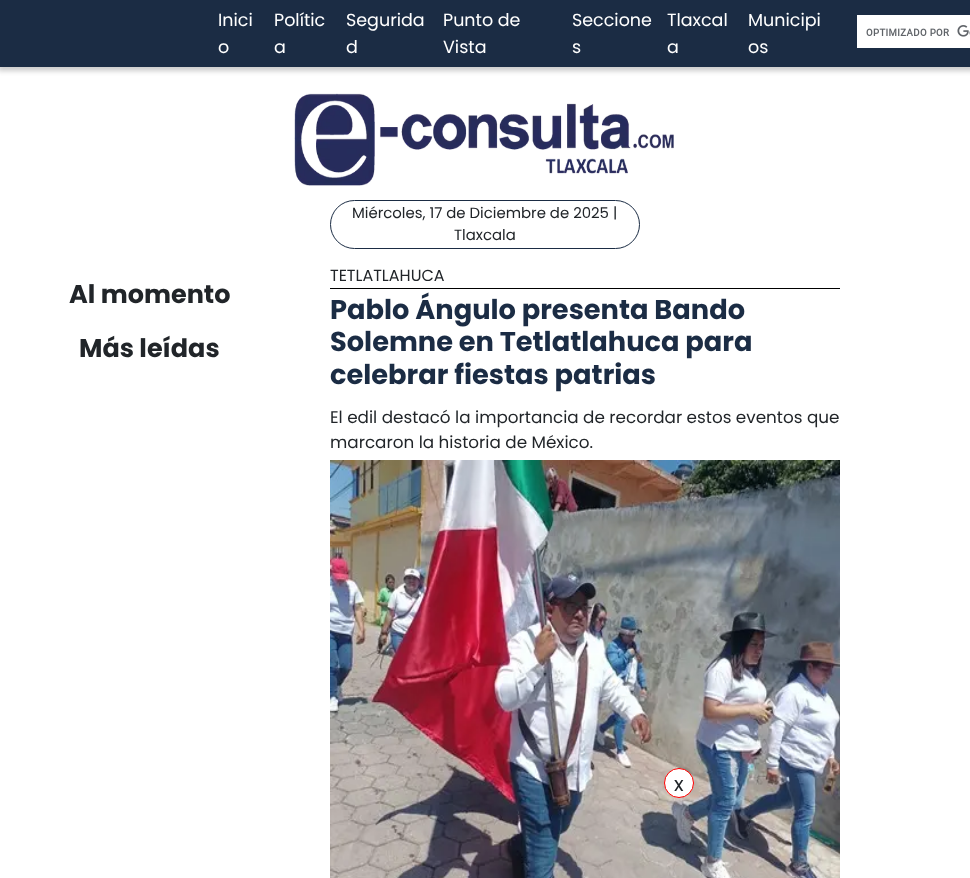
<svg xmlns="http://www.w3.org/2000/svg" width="970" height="878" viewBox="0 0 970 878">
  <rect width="100%" height="100%" fill="rgb(255,255,255)"/>
  <rect x="-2" y="0" width="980" height="71" fill="rgba(0,0,0,0.2)" filter="blur(2.5px)"/>
  <rect x="0" y="0" width="970" height="67" fill="rgb(27,44,68)"/>
  <g font-family="Poppins" font-size="17.5" fill="rgb(255,255,255)">
    <text>
      <tspan x="218" y="26">Inici</tspan>
      <tspan x="218" y="53">o</tspan>
    </text>
    <text>
      <tspan x="274" y="26">Polític</tspan>
      <tspan x="274" y="53">a</tspan>
    </text>
    <text>
      <tspan x="346" y="26">Segurida</tspan>
      <tspan x="346" y="53">d</tspan>
    </text>
    <text>
      <tspan x="443" y="26">Punto de</tspan>
      <tspan x="443" y="53">Vista</tspan>
    </text>
    <text>
      <tspan x="572" y="26">Seccione</tspan>
      <tspan x="572" y="53">s</tspan>
    </text>
    <text>
      <tspan x="667" y="26">Tlaxcal</tspan>
      <tspan x="667" y="53">a</tspan>
    </text>
    <text>
      <tspan x="748" y="26">Municipi</tspan>
      <tspan x="748" y="53">os</tspan>
    </text>
  </g>
  <rect x="857" y="15" width="113" height="33" fill="rgb(255,255,255)"/>
  <image x="866" y="25" width="104" height="12" href="pic1.png"/>
  <image x="294" y="93" width="380" height="93" href="pic2.png"/>
  <rect x="330.5" y="200.5" width="309" height="48" rx="24" fill="none" stroke="rgb(27,44,68)"/>
  <g font-family="Poppins" font-size="14.9" fill="rgb(33,37,41)">
    <text x="352" y="218">Miércoles, 17 de Diciembre de 2025 |</text>
    <text x="454" y="240">Tlaxcala</text>
  </g>
  <g font-family="Poppins" font-size="25.5" font-weight="bold" fill="rgb(33,37,41)">
    <text x="69" y="303">Al momento</text>
    <text x="79" y="357">Más leídas</text>
  </g>
  <rect x="330" y="288" width="510" height="1" fill="rgb(0,0,0)"/>
  <text x="330" y="281" font-family="Poppins" font-size="16" fill="rgb(33,37,41)">TETLATLAHUCA</text>
  <g font-family="Poppins" font-size="27.25" font-weight="bold" fill="rgb(27,44,68)">
    <text>
      <tspan x="330" y="319">Pablo Ángulo presenta Bando</tspan>
      <tspan x="330" y="351">Solemne en Tetlatlahuca para</tspan>
      <tspan x="330" y="384">celebrar fiestas patrias</tspan>
    </text>
  </g>
  <g font-family="Poppins" font-size="16.8" fill="rgb(33,37,41)">
    <text>
      <tspan x="330" y="423">El edil destacó la importancia de recordar estos eventos que</tspan>
      <tspan x="330" y="448">marcaron la historia de México.</tspan>
    </text>
  </g>
  <image x="330" y="460" width="510" height="418" href="pic3.png"/>
  <circle cx="679" cy="783" r="14.5" fill="rgb(255,255,255)" stroke="rgb(255,0,0)"/>
  <text x="674" y="791" font-family="Poppins" font-size="20" fill="rgb(33,37,41)">x</text>
</svg>
